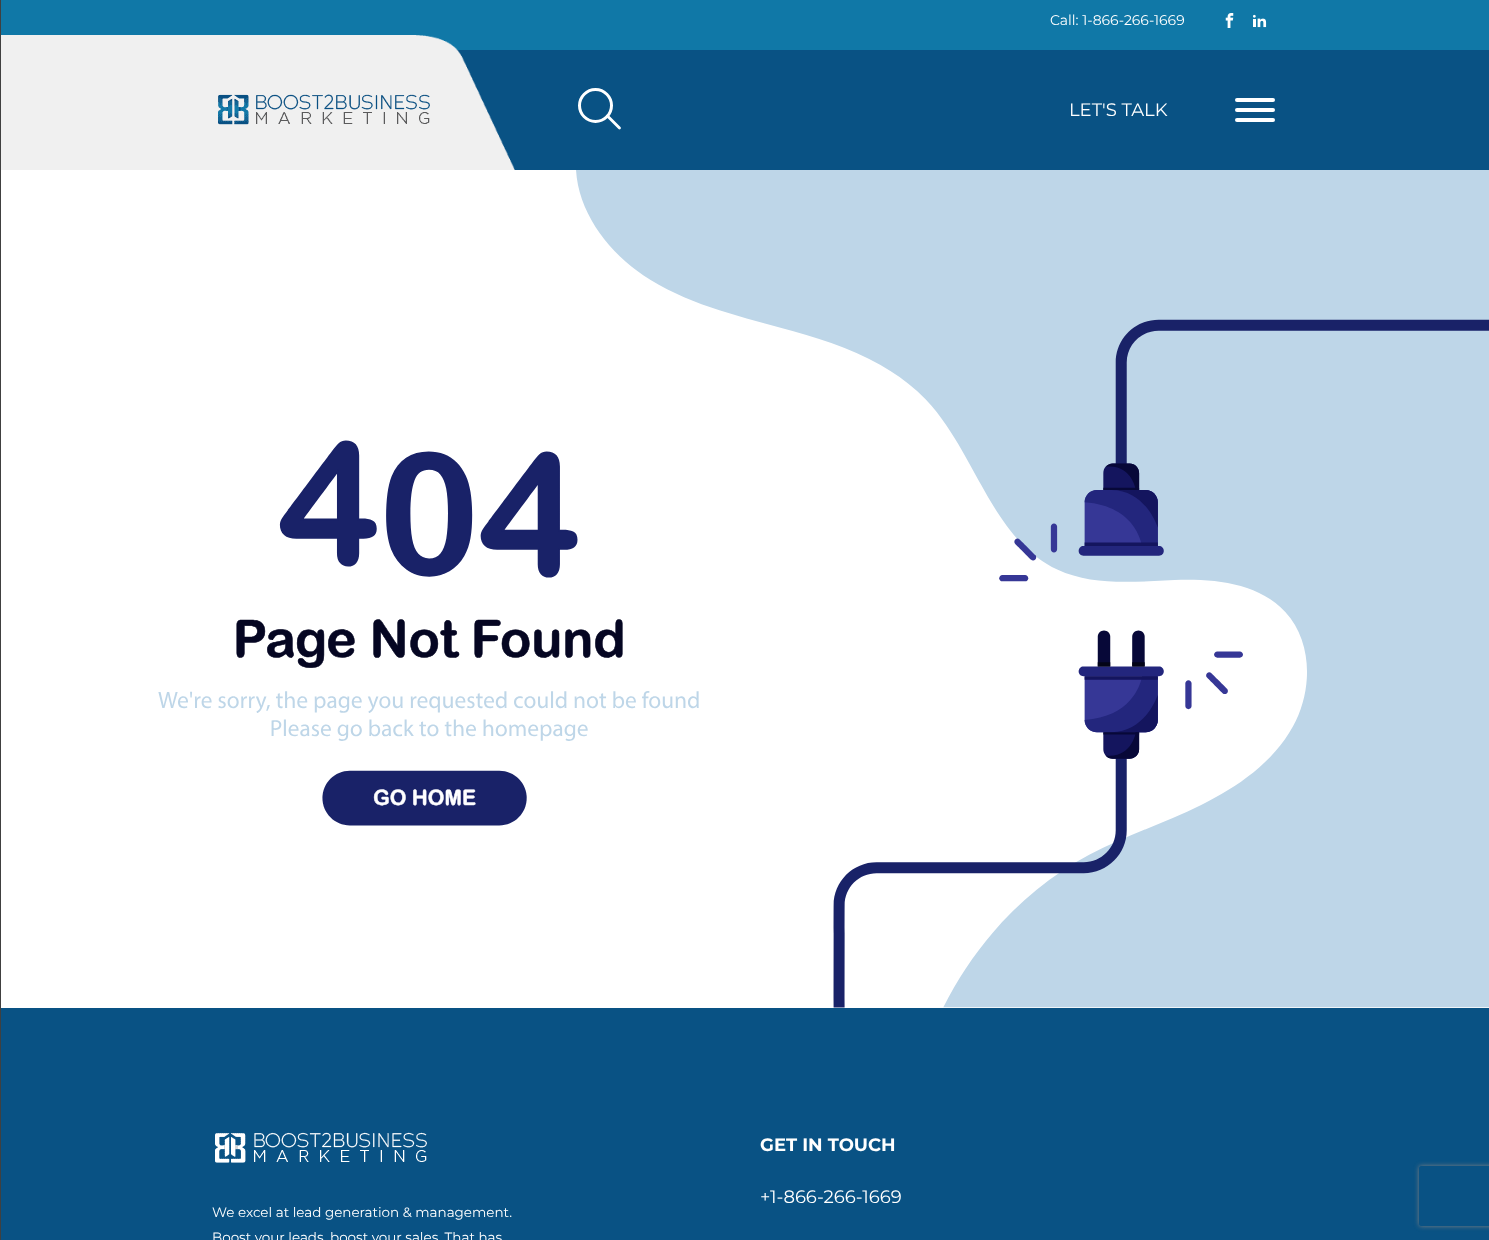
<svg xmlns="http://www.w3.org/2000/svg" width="1489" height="1240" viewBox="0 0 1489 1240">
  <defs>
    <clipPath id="clip1"><path d="M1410 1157H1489V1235H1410ZM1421 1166H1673C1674 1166 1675 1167 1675 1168V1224C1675 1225 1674 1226 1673 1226H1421C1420 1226 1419 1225 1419 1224V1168C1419 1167 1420 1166 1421 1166Z" clip-rule="evenodd"/></clipPath>
  </defs>
  <rect width="100%" height="100%" fill="rgb(255,255,255)"/>
  <rect x="1" y="0" width="1488" height="50" fill="rgb(16,120,167)"/>
  <text x="1050" y="25" font-family="Montserrat" font-size="14" fill="rgb(255,255,255)">Call: 1-866-266-1669</text>
  <image x="1225" y="13" width="9" height="15" href="pic1.png"/>
  <image x="1253" y="14" width="14" height="14" href="pic2.png"/>
  <rect x="456" y="50" width="1033" height="120" fill="rgb(9,82,132)"/>
  <image x="1" y="35" width="514" height="135" href="pic3.png"/>
  <image x="218" y="94" width="212" height="31" href="pic4.png"/>
  <circle cx="595.5" cy="105.5" r="16" fill="none" stroke="rgb(255,255,255)" stroke-width="3"/>
  <path d="M606.5 115C607 114 608 114 608.5 115L620.5 127C621 127.5 621 128.5 620.5 129C620 129.5 619 129.5 618.5 129L606.5 117C605.5 116.5 605.5 115.5 606.5 115Z" fill="rgb(255,255,255)"/>
  <rect x="0" y="0" width="1" height="1240" fill="rgb(64,64,64)"/>
  <text x="1069" y="116" font-family="Montserrat" font-size="18" fill="rgb(255,255,255)">LET'S TALK</text>
  <rect x="1235" y="98" width="40" height="4" rx="2" fill="rgb(255,255,255)"/>
  <rect x="1235" y="108" width="40" height="4" rx="2" fill="rgb(255,255,255)"/>
  <rect x="1235" y="118" width="40" height="4" rx="2" fill="rgb(255,255,255)"/>
  <image x="158" y="170" width="1331" height="838" href="pic5.png"/>
  <rect x="1" y="1008" width="1488" height="232" fill="rgb(9,82,132)"/>
  <text x="760" y="1151" font-family="Montserrat" font-size="18" font-weight="bold" fill="rgb(255,255,255)">GET IN TOUCH</text>
  <text x="760" y="1203" font-family="Montserrat" font-size="18" fill="rgb(255,255,255)">+1-866-266-1669</text>
  <image x="215" y="1132" width="212" height="31" href="pic6.png"/>
  <g font-family="Montserrat" font-size="13.5" fill="rgb(255,255,255)">
    <text>
      <tspan x="212" y="1217">We excel at lead generation &amp; management.</tspan>
      <tspan x="212" y="1242">Boost your leads, boost your sales. That has</tspan>
    </text>
  </g>
  <g clip-path="url(#clip1)">
    <rect x="1419" y="1166" width="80" height="60" rx="2" fill="rgb(128,128,128)" filter="blur(2.5px)"/>
  </g>
</svg>
